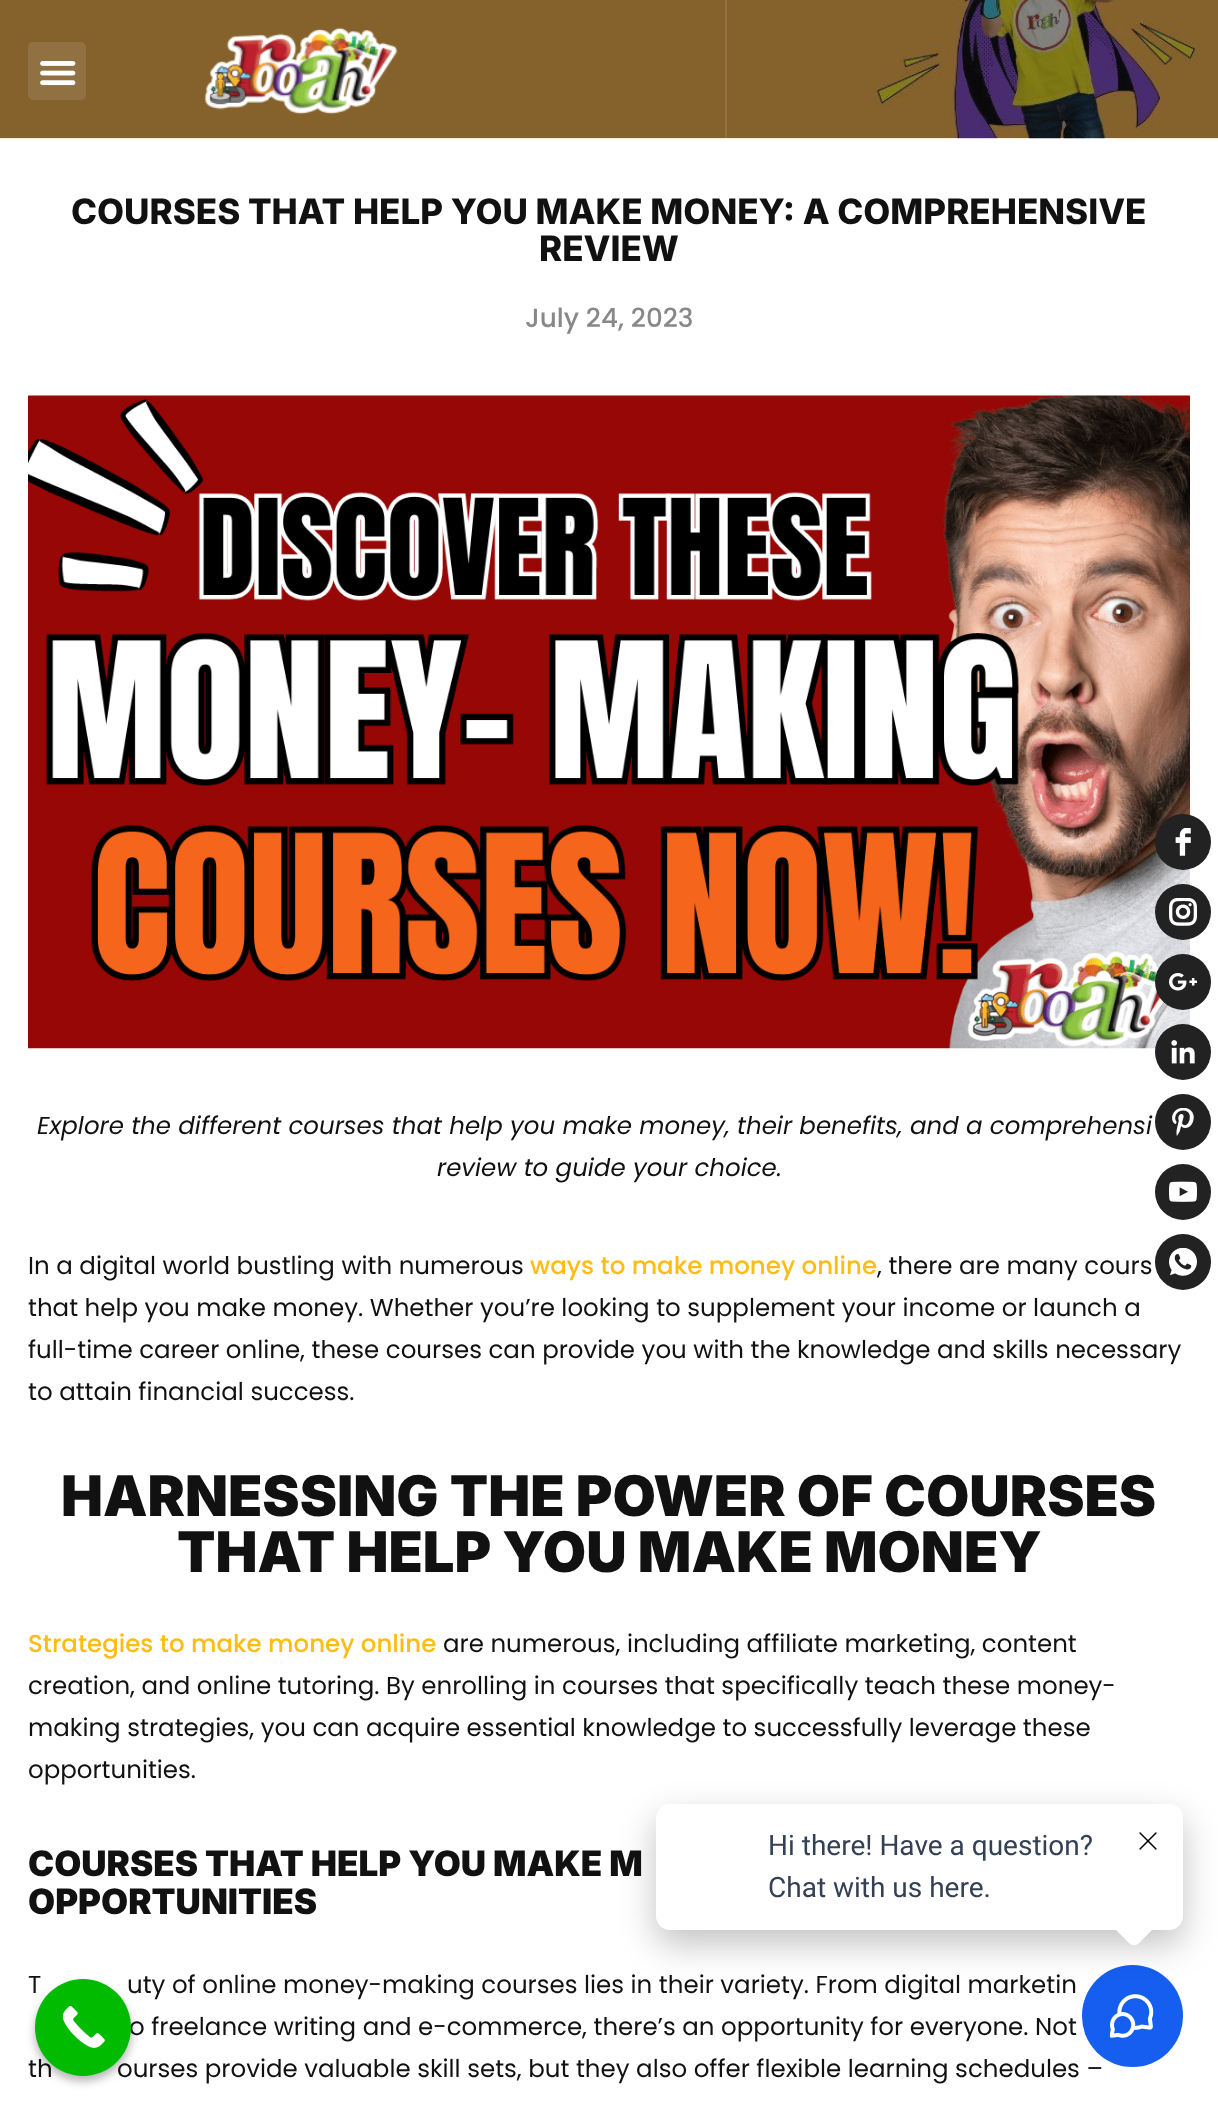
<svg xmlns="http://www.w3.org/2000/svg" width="1218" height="2101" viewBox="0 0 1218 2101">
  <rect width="100%" height="100%" fill="rgb(255,255,255)"/>
  <image x="0" y="0" width="1218" height="139" href="pic10.png"/>
  <rect x="28" y="42" width="58" height="58" rx="5" fill="rgb(145,113,65)"/>
  <image x="40" y="61" width="36" height="25" href="pic1.png"/>
  <image x="204" y="27" width="194" height="88" href="pic2.png"/>
  <rect x="725" y="0" width="2" height="142" fill="rgba(255,255,255,0.1)"/>
  <image x="28" y="395" width="1162" height="654" href="pic11.png"/>
  <circle cx="1183" cy="842" r="28" fill="rgb(34,34,34)"/>
  <image x="1175" y="828" width="16" height="28" href="pic3.png"/>
  <circle cx="1183" cy="912" r="28" fill="rgb(34,34,34)"/>
  <image x="1169" y="898" width="28" height="28" href="pic4.png"/>
  <circle cx="1183" cy="982" r="28" fill="rgb(34,34,34)"/>
  <image x="1169" y="973" width="28" height="18" href="pic5.png"/>
  <circle cx="1183" cy="1052" r="28" fill="rgb(34,34,34)"/>
  <image x="1171" y="1040" width="24" height="24" href="pic6.png"/>
  <circle cx="1183" cy="1122" r="28" fill="rgb(34,34,34)"/>
  <image x="1172" y="1108" width="22" height="28" href="pic7.png"/>
  <circle cx="1183" cy="1192" r="28" fill="rgb(34,34,34)"/>
  <image x="1169" y="1181" width="28" height="21" href="pic8.png"/>
  <circle cx="1183" cy="1262" r="28" fill="rgb(34,34,34)"/>
  <image x="1169" y="1248" width="28" height="28" href="pic9.png"/>
  <g font-family="Inter" font-size="35" font-weight="800" fill="rgb(17,17,17)">
    <text x="71" y="224">COURSES THAT HELP YOU MAKE MONEY: A COMPREHENSIVE</text>
    <text x="539" y="261">REVIEW</text>
  </g>
  <text x="525" y="327" font-family="Poppins" font-size="26.25" font-weight="500" fill="rgb(136,136,136)">July 24, 2023</text>
  <g font-family="Poppins" font-size="24.5" font-style="italic" fill="rgb(17,17,17)">
    <text x="37" y="1134">Explore the different courses that help you make money, their benefits, and a comprehensi</text>
    <text x="437" y="1176">review to guide your choice.</text>
  </g>
  <text x="28" y="1274" font-family="Poppins" font-size="24.5" fill="rgb(17,17,17)">In a digital world bustling with numerous</text>
  <text x="530" y="1274" font-family="Poppins" font-size="24.5" font-weight="500" fill="rgb(255,188,19)">ways to make money online</text>
  <g font-family="Poppins" font-size="24.5" fill="rgb(17,17,17)">
    <text x="877" y="1274">, there are many cours</text>
    <text>
      <tspan x="28" y="1316">that help you make money. Whether you’re looking to supplement your income or launch a</tspan>
      <tspan x="28" y="1358">full-time career online, these courses can provide you with the knowledge and skills necessary</tspan>
      <tspan x="28" y="1400">to attain financial success.</tspan>
    </text>
  </g>
  <g font-family="Inter" font-size="56" font-weight="900" fill="rgb(17,17,17)">
    <text x="61" y="1516">HARNESSING THE POWER OF COURSES</text>
    <text x="177" y="1572">THAT HELP YOU MAKE MONEY</text>
  </g>
  <text x="28" y="1652" font-family="Poppins" font-size="24.5" font-weight="500" fill="rgb(255,188,19)">Strategies to make money online</text>
  <g font-family="Poppins" font-size="24.5" fill="rgb(17,17,17)">
    <text x="443" y="1652">are numerous, including affiliate marketing, content</text>
    <text>
      <tspan x="28" y="1694">creation, and online tutoring. By enrolling in courses that specifically teach these money-</tspan>
      <tspan x="28" y="1736">making strategies, you can acquire essential knowledge to successfully leverage these</tspan>
      <tspan x="28" y="1778">opportunities.</tspan>
    </text>
  </g>
  <g font-family="Inter" font-size="35" font-weight="900" fill="rgb(17,17,17)">
    <text>
      <tspan x="28" y="1876">COURSES THAT HELP YOU MAKE M</tspan>
      <tspan x="28" y="1914">OPPORTUNITIES</tspan>
    </text>
  </g>
  <g font-family="Poppins" font-size="24.5" fill="rgb(17,17,17)">
    <text x="28" y="1993">T</text>
    <text x="127" y="1993">uty of online money-making courses lies in their variety. From digital marketin</text>
    <text x="129" y="2035">o freelance writing and e-commerce, there’s an opportunity for everyone. Not</text>
    <text x="28" y="2077">th</text>
    <text x="117" y="2077">ourses provide valuable skill sets, but they also offer flexible learning schedules –</text>
  </g>
  <rect x="1082" y="1965" width="101" height="102" rx="50.5" fill="rgb(21,94,239)"/>
  <image x="1110" y="1994" width="44" height="44" href="pic13.png"/>
  <rect x="656" y="1818" width="527" height="126" rx="14" fill="rgba(0,0,0,0.24)" filter="blur(17.5px)"/>
  <rect x="656" y="1804" width="527" height="126" rx="14" fill="rgb(255,255,255)"/>
  <g font-family="Roboto" font-size="28" fill="rgb(52,64,84)">
    <text>
      <tspan x="768" y="1855">Hi there! Have a question?</tspan>
      <tspan x="768" y="1897">Chat with us here.</tspan>
    </text>
  </g>
  <path d="M1139 1903L1154 1918C1157 1921 1157 1925 1154 1928L1139 1943C1136 1946 1132 1946 1129 1943L1114 1928C1111 1925 1111 1921 1114 1918L1129 1903C1132 1901 1136 1901 1139 1903Z" fill="rgb(255,255,255)"/>
  <image x="1139" y="1832" width="18" height="18" href="pic12.png"/>
  <rect x="35" y="1985" width="96" height="96" rx="48" fill="rgba(0,0,0,0.3)" filter="blur(5px)"/>
  <rect x="35" y="1979" width="96" height="97" rx="48" fill="rgb(0,187,0)"/>
  <image x="62" y="2006" width="43" height="42" href="pic14.png"/>
</svg>
